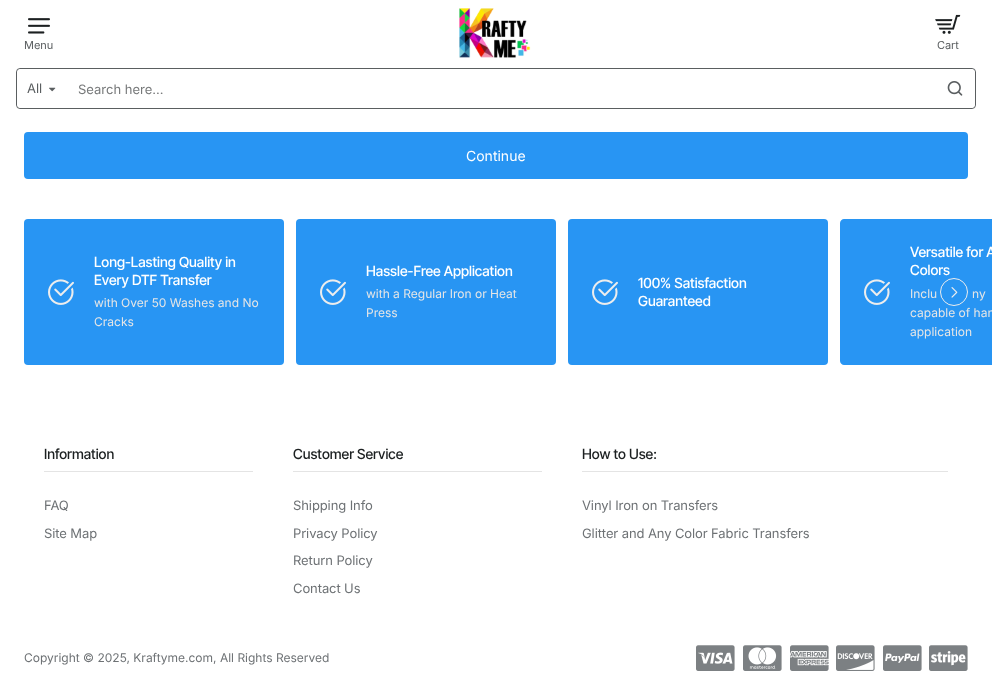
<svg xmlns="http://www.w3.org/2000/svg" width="992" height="693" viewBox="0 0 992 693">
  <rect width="100%" height="100%" fill="rgb(255,255,255)"/>
  <image x="28" y="18" width="22" height="16" href="pic1.png"/>
  <text x="24" y="49" font-family="Inter" font-size="11" fill="rgb(90,94,96)">Menu</text>
  <image x="459" y="8" width="72" height="50" href="pic2.png"/>
  <image x="935" y="14" width="26" height="20" href="pic3.png"/>
  <text x="937" y="49" font-family="Inter" font-size="11" letter-spacing="-0.1" fill="rgb(90,94,96)">Cart</text>
  <rect x="16.5" y="68.5" width="959" height="40" rx="3.5" fill="none" stroke="rgb(90,94,96)"/>
  <path d="M21 69H66V108H21C19 108 17 106 17 104V73C17 71 19 69 21 69Z" fill="rgb(255,255,255)"/>
  <text x="27" y="93" font-family="Inter" font-size="13" fill="rgb(90,94,96)">All</text>
  <image x="49" y="87" width="7" height="5" href="pic4.png"/>
  <text x="78" y="94" font-family="Inter" font-size="13" fill="rgb(119,121,122)">Search here...</text>
  <path d="M935 69H971C973 69 975 71 975 73V104C975 106 973 108 971 108H935Z" fill="rgb(255,255,255)"/>
  <image x="947" y="81" width="16" height="15" href="pic5.png"/>
  <rect x="24" y="132" width="944" height="47" rx="4" fill="rgb(40,149,243)"/>
  <text x="466" y="161" font-family="Inter" font-size="14" fill="rgb(255,255,255)">Continue</text>
  <rect x="24" y="219" width="260" height="146" rx="4" fill="rgb(40,149,243)"/>
  <image x="48" y="279" width="26" height="26" href="pic6.png"/>
  <g font-family="Inter Tight" font-size="14" font-weight="500" fill="rgb(255,255,255)">
    <text>
      <tspan x="94" y="267">Long-Lasting Quality in</tspan>
      <tspan x="94" y="285">Every DTF Transfer</tspan>
    </text>
  </g>
  <g font-family="Inter" font-size="12" fill="rgb(230,230,230)">
    <text>
      <tspan x="94" y="307">with Over 50 Washes and No</tspan>
      <tspan x="94" y="326">Cracks</tspan>
    </text>
  </g>
  <rect x="296" y="219" width="260" height="146" rx="4" fill="rgb(40,149,243)"/>
  <image x="320" y="279" width="26" height="26" href="pic6.png"/>
  <text x="366" y="276" font-family="Inter Tight" font-size="14" font-weight="500" fill="rgb(255,255,255)">Hassle-Free Application</text>
  <g font-family="Inter" font-size="12" fill="rgb(230,230,230)">
    <text>
      <tspan x="366" y="298">with a Regular Iron or Heat</tspan>
      <tspan x="366" y="317">Press</tspan>
    </text>
  </g>
  <rect x="568" y="219" width="260" height="146" rx="4" fill="rgb(40,149,243)"/>
  <image x="592" y="279" width="26" height="26" href="pic6.png"/>
  <g font-family="Inter Tight" font-size="14" font-weight="500" fill="rgb(255,255,255)">
    <text>
      <tspan x="638" y="288">100% Satisfaction</tspan>
      <tspan x="638" y="306">Guaranteed</tspan>
    </text>
  </g>
  <path d="M844 219H992V365H844C842 365 840 363 840 361V223C840 221 842 219 844 219Z" fill="rgb(40,149,243)"/>
  <image x="864" y="279" width="26" height="26" href="pic6.png"/>
  <g font-family="Inter Tight" font-size="14" font-weight="500" fill="rgb(255,255,255)">
    <text>
      <tspan x="910" y="257">Versatile for A</tspan>
      <tspan x="910" y="275">Colors</tspan>
    </text>
  </g>
  <g font-family="Inter" font-size="12" fill="rgb(230,230,230)">
    <text x="910" y="298">Inclu</text>
    <text x="972" y="298">ny</text>
    <text>
      <tspan x="910" y="317">capable of han</tspan>
      <tspan x="910" y="336">application</tspan>
    </text>
  </g>
  <circle cx="954" cy="292" r="13.5" fill="none" stroke="rgb(237,237,237)"/>
  <image x="951" y="287" width="7" height="11" href="pic7.png"/>
  <rect x="44" y="471" width="209" height="1" fill="rgb(228,228,228)"/>
  <text x="44" y="459" font-family="Inter Tight" font-size="14" font-weight="500" fill="rgb(28,32,33)">Information</text>
  <g font-family="Inter" font-size="13" letter-spacing="-0.1" fill="rgb(110,114,117)">
    <text x="44" y="510">FAQ</text>
    <text x="44" y="538">Site Map</text>
  </g>
  <rect x="293" y="471" width="249" height="1" fill="rgb(228,228,228)"/>
  <text x="293" y="459" font-family="Inter Tight" font-size="14" font-weight="500" fill="rgb(28,32,33)">Customer Service</text>
  <g font-family="Inter" font-size="13" letter-spacing="-0.1" fill="rgb(110,114,117)">
    <text x="293" y="510">Shipping Info</text>
    <text x="293" y="538">Privacy Policy</text>
    <text x="293" y="565">Return Policy</text>
    <text x="293" y="593">Contact Us</text>
  </g>
  <rect x="582" y="471" width="366" height="1" fill="rgb(228,228,228)"/>
  <text x="582" y="459" font-family="Inter Tight" font-size="14" font-weight="500" fill="rgb(28,32,33)">How to Use:</text>
  <g font-family="Inter" font-size="13" letter-spacing="-0.1" fill="rgb(110,114,117)">
    <text x="582" y="510">Vinyl Iron on Transfers</text>
    <text x="582" y="538">Glitter and Any Color Fabric Transfers</text>
  </g>
  <text x="24" y="662" font-family="Inter" font-size="12" fill="rgb(110,114,117)">Copyright © 2025, Kraftyme.com, All Rights Reserved</text>
  <image x="696" y="645" width="39" height="26" href="pic8.png"/>
  <image x="743" y="645" width="39" height="26" href="pic9.png"/>
  <image x="790" y="645" width="39" height="26" href="pic10.png"/>
  <image x="836" y="645" width="39" height="26" href="pic11.png"/>
  <image x="883" y="645" width="39" height="26" href="pic12.png"/>
  <image x="929" y="645" width="39" height="26" href="pic13.png"/>
</svg>
